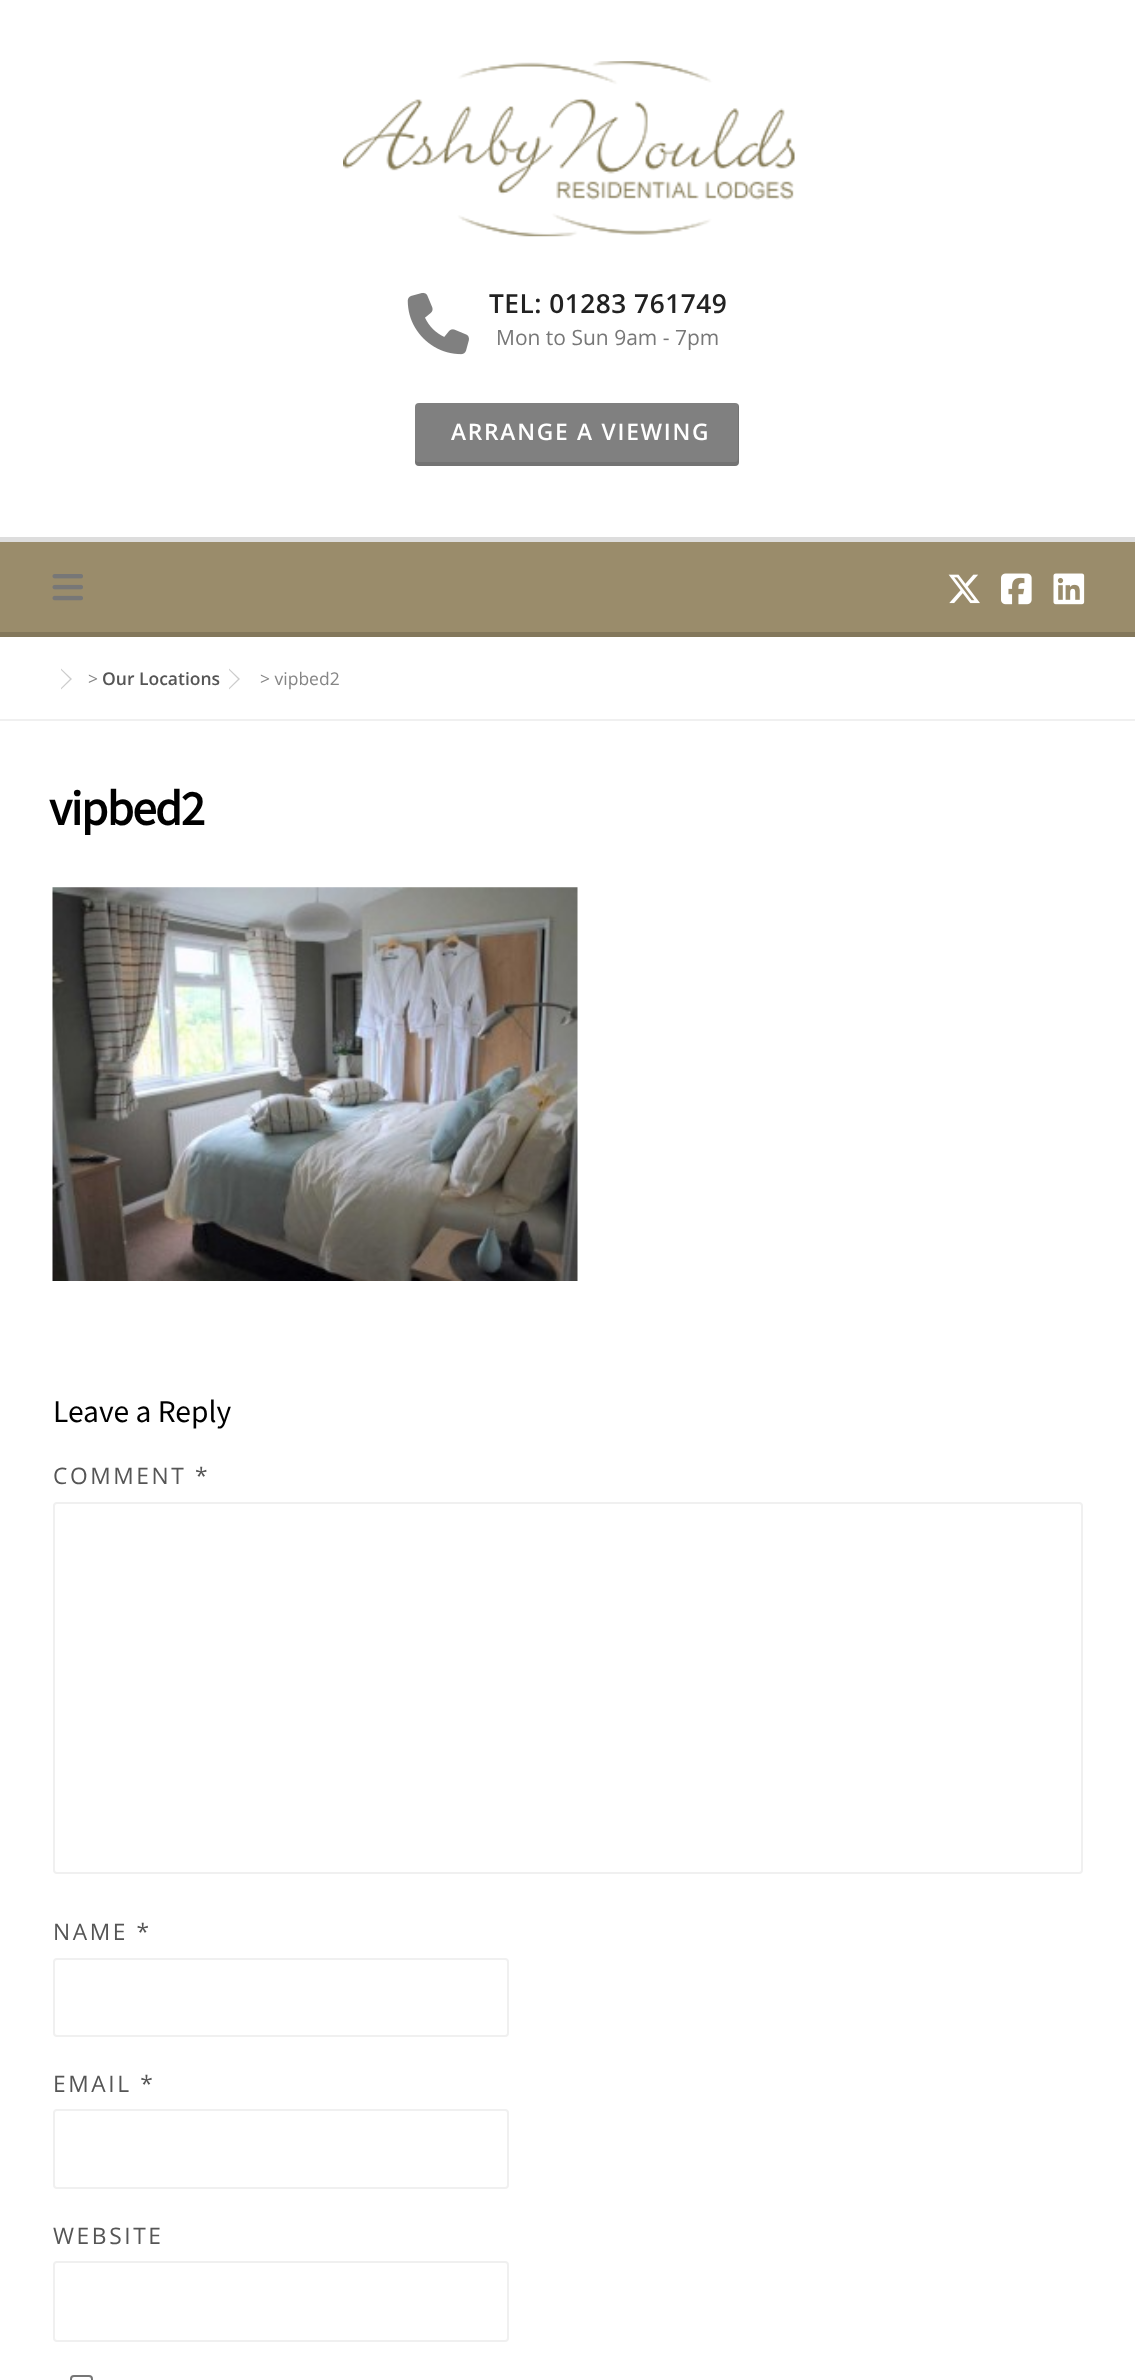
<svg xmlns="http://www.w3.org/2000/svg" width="1135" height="2380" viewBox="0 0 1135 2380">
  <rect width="100%" height="100%" fill="rgb(255,255,255)"/>
  <image x="343" y="61" width="452" height="176" href="pic1.png"/>
  <image x="407" y="292" width="62" height="63" href="pic2.png"/>
  <text x="489" y="313" font-family="Open Sans" font-size="26.25" font-weight="600" letter-spacing="0.5" fill="rgb(34,34,34)">TEL: 01283 761749</text>
  <text x="496" y="345" font-family="Open Sans" font-size="21" fill="rgb(119,119,119)">Mon to Sun 9am - 7pm</text>
  <rect x="415" y="403" width="324" height="63" rx="4" fill="rgb(128,128,128)"/>
  <path d="M415 458V462C415 464 417 466 419 466H735C737 466 739 464 739 462V407C739 406 739 405 738 404V458C738 460 737 462 735 462H418C416 462 415 460 415 458Z" fill="rgba(0,0,0,0.1)"/>
  <text x="451" y="440" font-family="Open Sans" font-size="22.75" font-weight="600" letter-spacing="1.75" fill="rgb(255,255,255)">ARRANGE A VIEWING</text>
  <rect x="0" y="542" width="1135" height="90" fill="rgb(154,140,107)"/>
  <rect x="0" y="537" width="1135" height="5" fill="rgb(221,221,221)"/>
  <image x="52" y="574" width="31" height="27" href="pic3.png"/>
  <image x="948" y="574" width="32" height="30" href="pic4.png"/>
  <image x="1001" y="573" width="31" height="32" href="pic5.png"/>
  <image x="1053" y="573" width="32" height="32" href="pic6.png"/>
  <rect x="0" y="632" width="1135" height="5" fill="rgb(131,119,91)"/>
  <rect x="0" y="719" width="1135" height="2" fill="rgb(240,240,240)"/>
  <path d="M61 689.5V668.5L72 679Z" fill="rgb(204,204,204)"/>
  <path d="M61 688V670L70 679Z" fill="rgb(255,255,255)"/>
  <text x="88" y="685" font-family="Open Sans" font-size="17.5" fill="rgb(133,133,133)">&gt;</text>
  <path d="M229 689.5V668.5L240 679Z" fill="rgb(204,204,204)"/>
  <text x="102" y="685" font-family="Open Sans" font-size="17.5" font-weight="600" fill="rgb(85,85,85)">Our Locations</text>
  <path d="M229 688V670L238 679Z" fill="rgb(255,255,255)"/>
  <text x="260" y="685" font-family="Open Sans" font-size="17.5" fill="rgb(133,133,133)">&gt; vipbed2</text>
  <text x="49" y="825" font-family="Source Sans Pro" font-size="49" font-weight="bold" letter-spacing="-1.5" fill="rgb(0,0,0)">vipbed2</text>
  <image x="52" y="887" width="526" height="394" href="pic7.png"/>
  <text x="53" y="1422" font-family="Source Sans Pro" font-size="31.5" fill="rgb(0,0,0)">Leave a Reply</text>
  <text x="53" y="1484" font-family="Open Sans" font-size="22.75" letter-spacing="2.6" fill="rgb(85,85,85)">COMMENT *</text>
  <rect x="54" y="1503" width="1028" height="370" rx="3" fill="none" stroke="rgb(240,240,240)" stroke-width="2"/>
  <text x="53" y="1940" font-family="Open Sans" font-size="22.75" letter-spacing="2.6" fill="rgb(85,85,85)">NAME *</text>
  <rect x="54" y="1959" width="454" height="77" rx="3" fill="none" stroke="rgb(240,240,240)" stroke-width="2"/>
  <text x="53" y="2092" font-family="Open Sans" font-size="22.75" letter-spacing="2.6" fill="rgb(85,85,85)">EMAIL *</text>
  <rect x="54" y="2110" width="454" height="78" rx="3" fill="none" stroke="rgb(240,240,240)" stroke-width="2"/>
  <text x="53" y="2244" font-family="Open Sans" font-size="22.75" letter-spacing="2.6" fill="rgb(85,85,85)">WEBSITE</text>
  <rect x="54" y="2262" width="454" height="79" rx="3" fill="none" stroke="rgb(240,240,240)" stroke-width="2"/>
  <rect x="71" y="2376" width="21" height="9" rx="3" fill="none" stroke="rgb(118,118,118)" stroke-width="2"/>
</svg>
